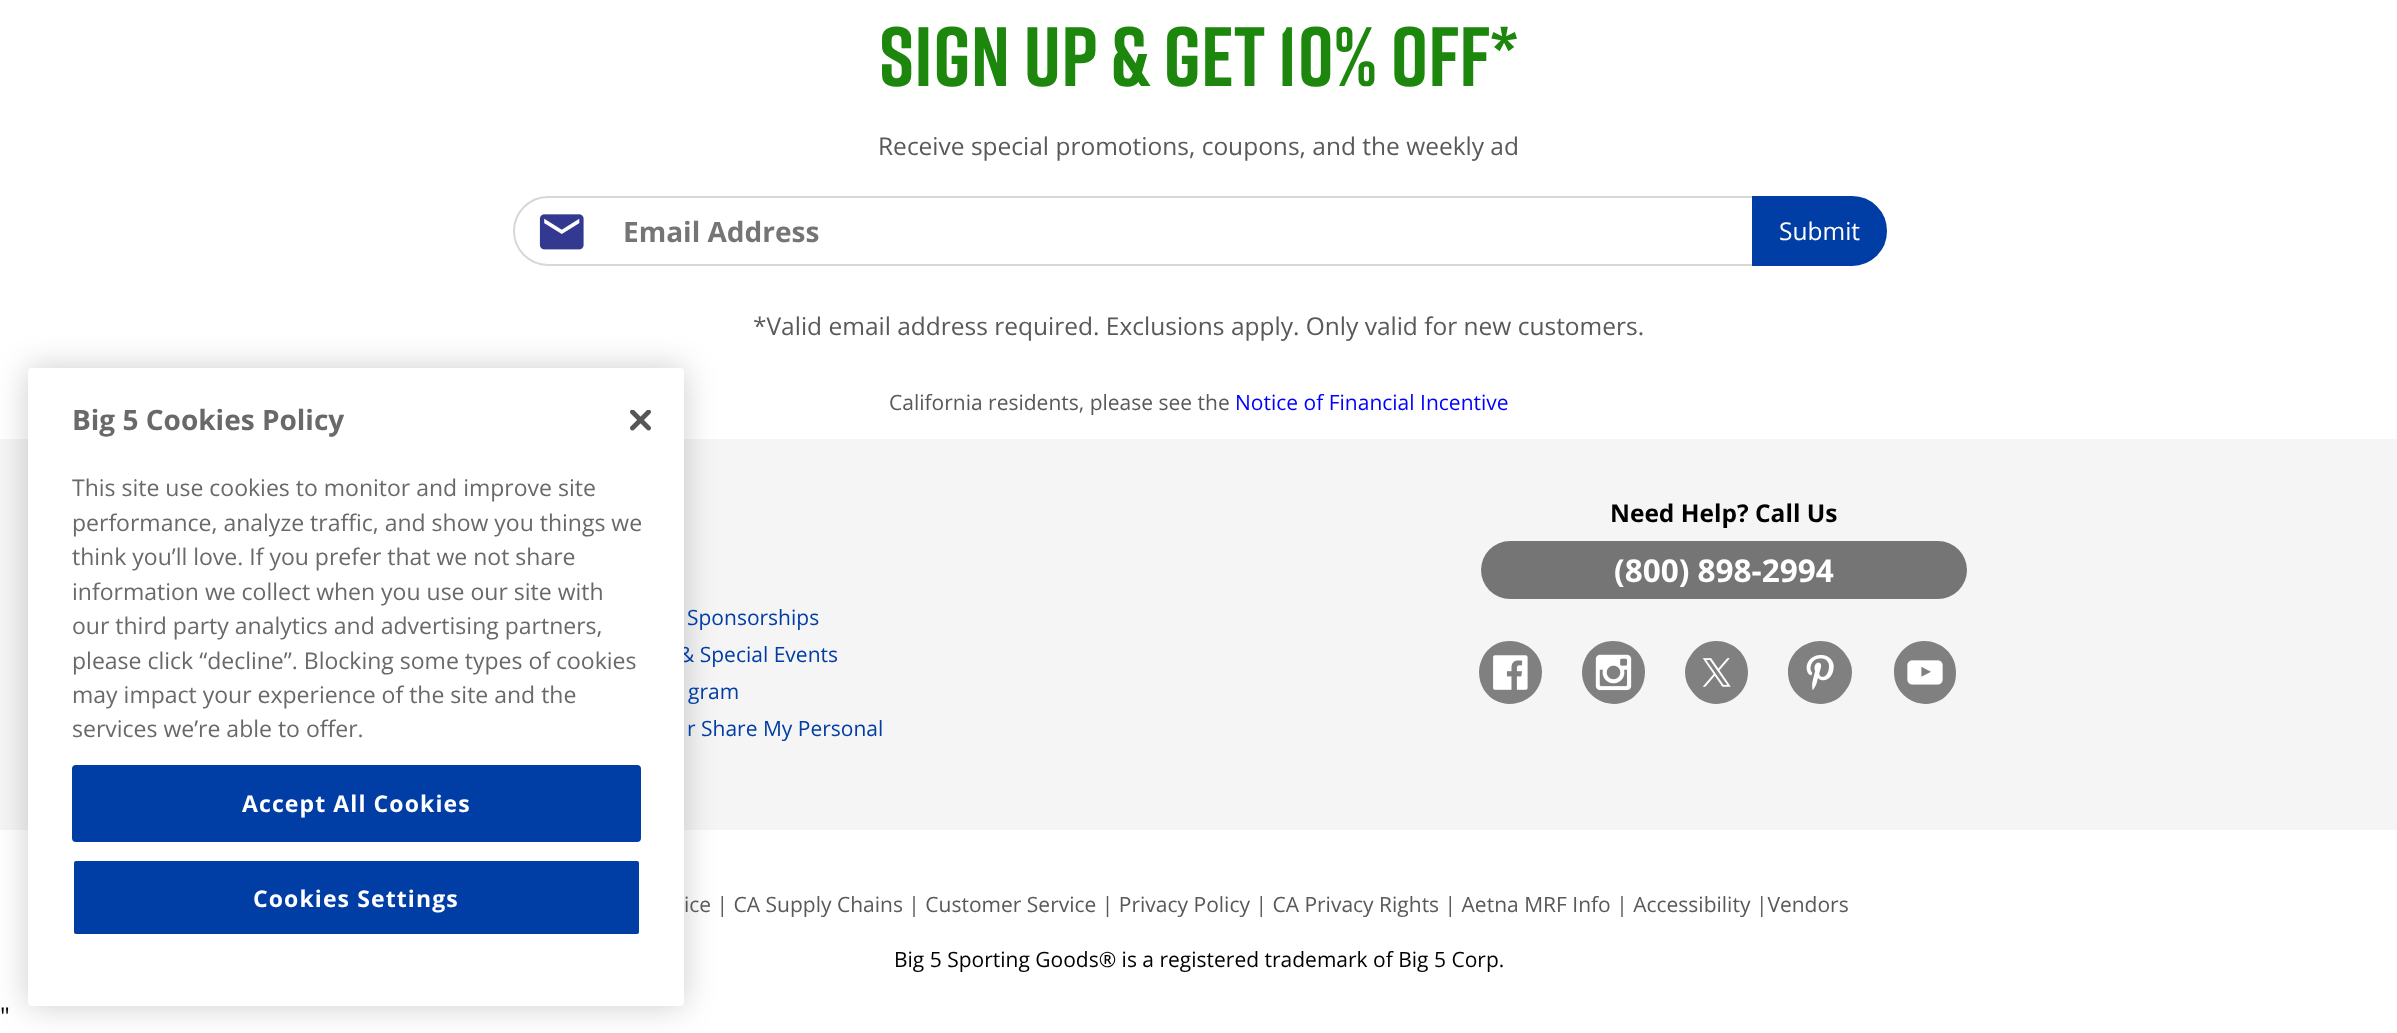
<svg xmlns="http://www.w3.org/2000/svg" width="2397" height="1033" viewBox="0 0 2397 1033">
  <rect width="100%" height="100%" fill="rgb(255,255,255)"/>
  <rect x="0" y="439" width="2397" height="391" fill="rgb(245,245,245)"/>
  <rect x="28" y="368" width="656" height="638" rx="4" fill="rgba(0,0,0,0.2)" filter="blur(16px)"/>
  <text x="679" y="662" font-family="Open Sans" font-size="21" fill="rgb(0,61,165)">&amp; Special Events</text>
  <rect x="28" y="368" width="656" height="638" rx="4" fill="rgb(255,255,255)"/>
  <text x="72" y="430" font-family="Open Sans" font-size="28" font-weight="bold" fill="rgb(105,105,105)">Big 5 Cookies Policy</text>
  <g font-family="Open Sans" font-size="23" fill="rgb(105,105,105)">
    <text>
      <tspan x="72" y="496">This site use cookies to monitor and improve site</tspan>
      <tspan x="72" y="531">performance, analyze traffic, and show you things we</tspan>
      <tspan x="72" y="565">think you’ll love. If you prefer that we not share</tspan>
      <tspan x="72" y="600">information we collect when you use our site with</tspan>
      <tspan x="72" y="634">our third party analytics and advertising partners,</tspan>
      <tspan x="72" y="669">please click “decline”. Blocking some types of cookies</tspan>
      <tspan x="72" y="703">may impact your experience of the site and the</tspan>
      <tspan x="72" y="737">services we’re able to offer.</tspan>
    </text>
  </g>
  <image x="630" y="410" width="21" height="21" href="pic1.png"/>
  <rect x="73" y="766" width="567" height="75" rx="3" fill="rgb(0,61,165)" stroke="rgb(0,61,165)" stroke-width="2"/>
  <text x="242" y="812" font-family="Open Sans" font-size="23" font-weight="bold" letter-spacing="1.1" fill="rgb(255,255,255)">Accept All Cookies</text>
  <rect x="73" y="860" width="567" height="75" rx="3" fill="rgb(0,61,165)" stroke="rgb(255,255,255)" stroke-width="2"/>
  <text x="253" y="907" font-family="Open Sans" font-size="23" font-weight="bold" letter-spacing="1.1" fill="rgb(255,255,255)">Cookies Settings</text>
  <text x="879" y="86" font-family="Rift" font-size="84" font-weight="bold" fill="rgb(29,135,13)">SIGN UP &amp; GET 10% OFF*</text>
  <text x="878" y="155" font-family="Open Sans" font-size="24.5" fill="rgb(89,89,89)">Receive special promotions, coupons, and the weekly ad</text>
  <rect x="514" y="197" width="1370" height="68" rx="34" fill="none" stroke="rgb(215,215,215)" stroke-width="2"/>
  <image x="539" y="214" width="45" height="36" href="pic2.png"/>
  <text x="623" y="242" font-family="Open Sans" font-size="28" font-weight="bold" fill="rgb(117,117,117)">Email Address</text>
  <path d="M1753 197H1852C1871 197 1886 212 1886 231C1886 250 1871 265 1852 265H1753Z" fill="rgb(0,61,165)" stroke="rgb(0,61,165)" stroke-width="2"/>
  <text x="1779" y="240" font-family="Open Sans" font-size="24.5" fill="rgb(255,255,255)">Submit</text>
  <text x="753" y="335" font-family="Open Sans" font-size="24.5" fill="rgb(89,89,89)">*Valid email address required. Exclusions apply. Only valid for new customers.</text>
  <text x="889" y="410" font-family="Open Sans" font-size="21" fill="rgb(89,89,89)">California residents, please see the</text>
  <text x="1235" y="410" font-family="Open Sans" font-size="21" fill="rgb(0,0,255)">Notice of Financial Incentive</text>
  <text x="1610" y="522" font-family="Open Sans" font-size="24.5" font-weight="bold" fill="rgb(0,0,0)">Need Help? Call Us</text>
  <rect x="1481" y="541" width="486" height="58" rx="29" fill="rgb(117,117,117)"/>
  <text x="1614" y="582" font-family="Open Sans" font-size="31.5" font-weight="bold" fill="rgb(255,255,255)">(800) 898-2994</text>
  <path d="M1542 672C1542 703 1501 716 1484 690C1481 685 1479 679 1479 672C1479 666 1481 660 1484 655C1501 629 1542 642 1542 672Z" fill="rgb(128,128,128)"/>
  <image x="1493" y="655" width="35" height="35" href="pic3.png"/>
  <path d="M1645 672C1645 679 1643 685 1640 690C1622 716 1582 703 1582 672C1582 666 1584 660 1587 655C1605 629 1645 642 1645 672Z" fill="rgb(128,128,128)"/>
  <image x="1595" y="654" width="37" height="37" href="pic4.png"/>
  <path d="M1748 672C1748 703 1708 716 1691 690C1687 685 1685 679 1685 672C1685 666 1687 660 1691 655C1708 629 1748 642 1748 672Z" fill="rgb(128,128,128)"/>
  <image x="1702" y="658" width="29" height="29" href="pic5.png"/>
  <path d="M1852 672C1852 679 1850 685 1846 690C1829 716 1788 703 1788 672C1788 642 1829 629 1846 655C1850 660 1852 666 1852 672Z" fill="rgb(128,128,128)"/>
  <image x="1806" y="655" width="28" height="35" href="pic6.png"/>
  <path d="M1956 672C1956 679 1955 685 1951 690C1934 716 1894 703 1894 672C1894 666 1895 660 1899 655C1916 629 1956 642 1956 672Z" fill="rgb(128,128,128)"/>
  <image x="1907" y="660" width="36" height="25" href="pic7.png"/>
  <g font-family="Open Sans" font-size="21" fill="rgb(0,61,165)">
    <text x="687" y="625">Sponsorships</text>
    <text x="688" y="699">gram</text>
    <text x="687" y="736">r Share My Personal</text>
  </g>
  <text x="684" y="912" font-family="Open Sans" font-size="21" fill="rgb(89,89,89)">ice | CA Supply Chains | Customer Service | Privacy Policy | CA Privacy Rights | Aetna MRF Info | Accessibility |Vendors</text>
  <text x="894" y="967" font-family="Open Sans" font-size="21" fill="rgb(0,0,0)">Big 5 Sporting Goods® is a registered trademark of Big 5 Corp.</text>
  <text x="0" y="1025" font-family="Open Sans" font-size="24.5" fill="rgb(0,0,0)">"</text>
</svg>
